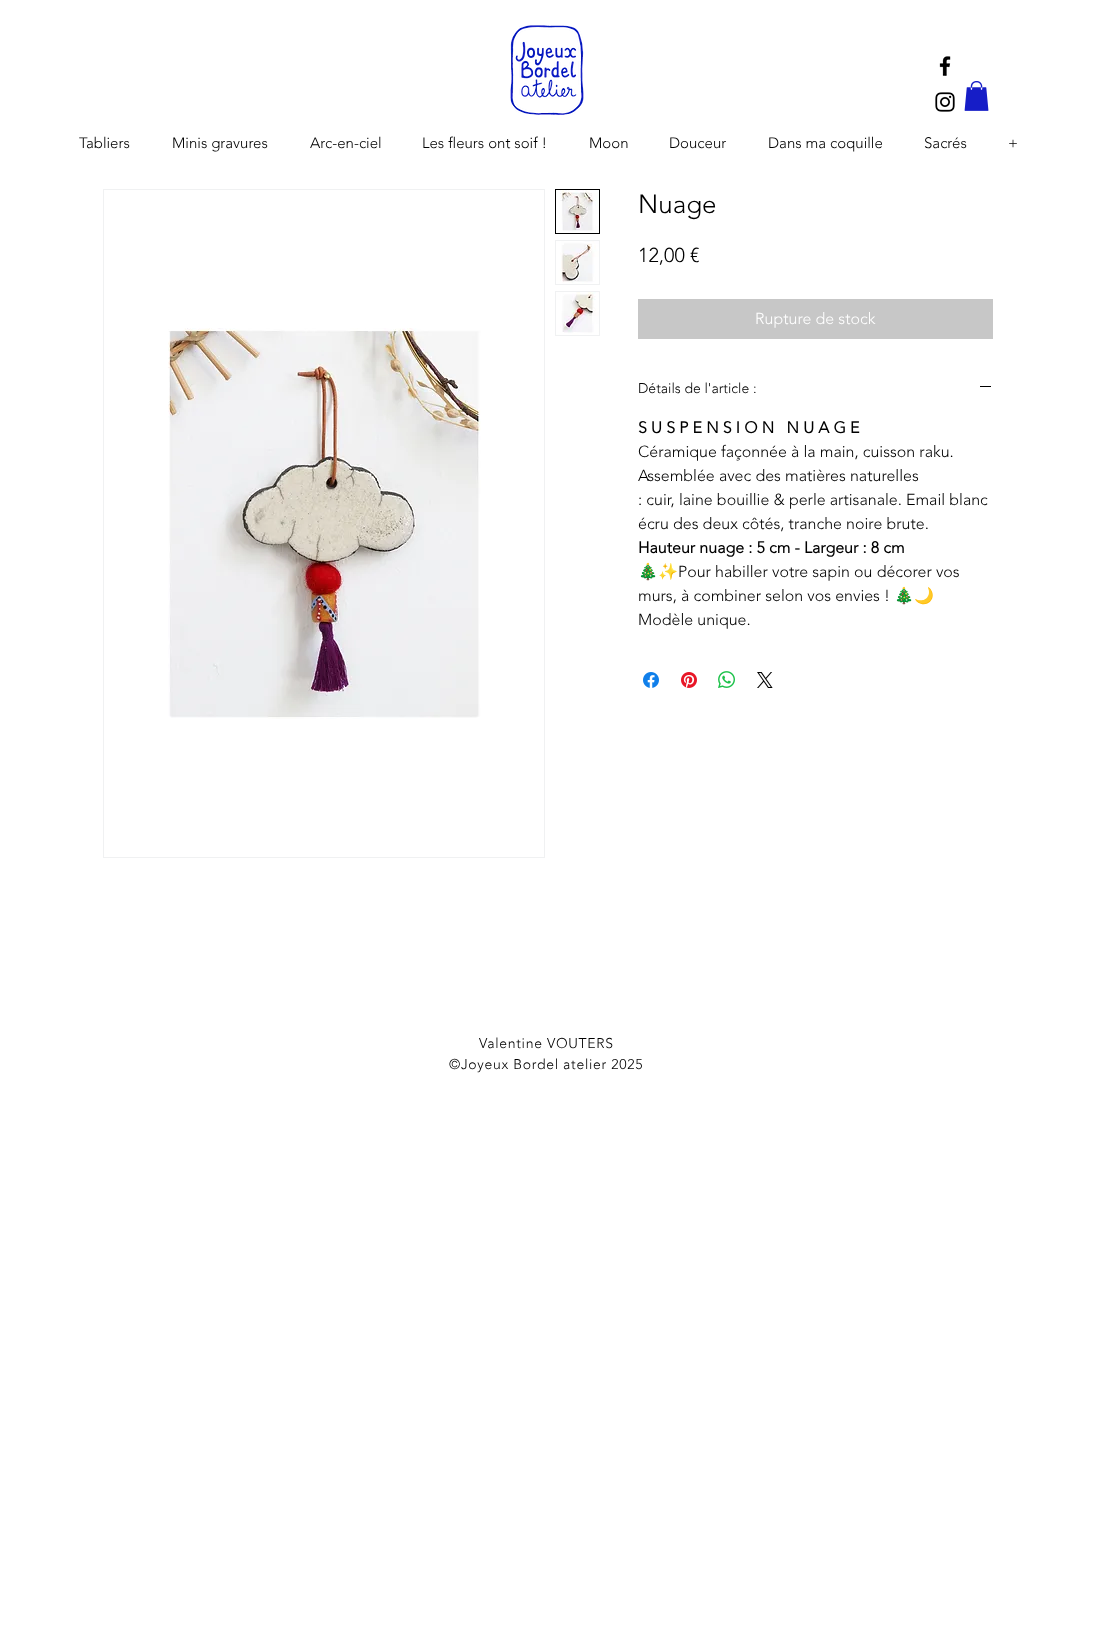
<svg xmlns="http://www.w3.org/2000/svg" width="1096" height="1649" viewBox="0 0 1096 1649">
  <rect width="100%" height="100%" fill="rgb(255,255,255)"/>
  <image x="964" y="81" width="25" height="30" href="pic1.png"/>
  <image x="510" y="25" width="74" height="90" href="pic2.png"/>
  <image x="939" y="56" width="12" height="20" href="pic3.png"/>
  <image x="935" y="92" width="20" height="20" href="pic4.png"/>
  <g font-family="'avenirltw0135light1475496'" font-size="15" font-weight="300" fill="rgb(0,0,0)">
    <text x="79" y="148">Tabliers</text>
    <text x="172" y="148">Minis gravures</text>
    <text x="310" y="148">Arc-en-ciel</text>
    <text x="422" y="148">Les fleurs ont soif !</text>
    <text x="589" y="148">Moon</text>
    <text x="669" y="148">Douceur</text>
    <text x="768" y="148">Dans ma coquille</text>
    <text x="924" y="148">Sacrés</text>
    <text x="1008" y="148">+</text>
  </g>
  <rect x="103.5" y="189.5" width="441" height="668" fill="none" stroke="rgb(240,241,242)"/>
  <image x="168" y="328" width="313" height="391" href="pic5.png"/>
  <rect x="555.5" y="189.5" width="44" height="44" fill="none" stroke="rgb(0,0,0)"/>
  <image x="556" y="190" width="43" height="43" href="pic6.png"/>
  <rect x="555" y="240" width="45" height="45" fill="rgb(240,241,242)"/>
  <image x="556" y="241" width="43" height="43" href="pic7.png"/>
  <rect x="555" y="291" width="45" height="45" fill="rgb(240,241,242)"/>
  <image x="556" y="292" width="43" height="43" href="pic8.png"/>
  <text x="638" y="213" font-family="'avenirltw0135light1475496'" font-size="26" font-weight="300" fill="rgb(0,0,0)">Nuage</text>
  <text x="638" y="262" font-family="'avenirltw0135light1475496'" font-size="20" font-weight="300" fill="rgb(0,0,0)">12,00 €</text>
  <rect x="638" y="299" width="355" height="40" fill="rgb(199,199,199)"/>
  <text x="755" y="324" font-family="'avenirltw0135light1475496'" font-size="16" font-weight="300" fill="rgb(255,255,255)">Rupture de stock</text>
  <text x="638" y="393" font-family="'avenirltw0135light1475496'" font-size="14" font-weight="300" fill="rgb(0,0,0)">Détails de l'article :</text>
  <rect x="980" y="386" width="11" height="1" fill="rgb(0,0,0)"/>
  <text x="638" y="433" font-family="'avenirltw0135light1475496'" font-size="16" font-weight="bold" fill="rgb(0,0,0)" xml:space="preserve">S U S P E N S I O N   N U A G E</text>
  <g font-family="'avenirltw0135light1475496'" font-size="16" font-weight="300" fill="rgb(0,0,0)">
    <text>
      <tspan x="638" y="457">Céramique façonnée à la main, cuisson raku.</tspan>
      <tspan x="638" y="481">Assemblée avec des matières naturelles</tspan>
      <tspan x="638" y="505">: cuir, laine bouillie &amp; perle artisanale. Email blanc</tspan>
      <tspan x="638" y="529">écru des deux côtés, tranche noire brute.</tspan>
    </text>
  </g>
  <text x="638" y="553" font-family="'avenirltw0135light1475496'" font-size="16" font-weight="bold" fill="rgb(0,0,0)">Hauteur nuage : 5 cm - Largeur : 8 cm</text>
  <text x="638" y="577" font-family="Noto Color Emoji" font-size="16" fill="rgb(0,0,0)">🎄✨</text>
  <g font-family="'avenirltw0135light1475496'" font-size="16" font-weight="300" fill="rgb(0,0,0)">
    <text x="678" y="577">Pour habiller votre sapin ou décorer vos</text>
    <text x="638" y="601">murs, à combiner selon vos envies !</text>
  </g>
  <text x="894" y="601" font-family="Noto Color Emoji" font-size="16" fill="rgb(0,0,0)">🎄🌙</text>
  <text x="638" y="625" font-family="'avenirltw0135light1475496'" font-size="16" font-weight="300" fill="rgb(0,0,0)">Modèle unique.</text>
  <image x="643" y="672" width="16" height="16" href="pic9.png"/>
  <image x="681" y="672" width="16" height="16" href="pic10.png"/>
  <image x="718" y="671" width="17" height="17" href="pic11.png"/>
  <image x="757" y="672" width="16" height="16" href="pic12.png"/>
  <g font-family="'avenirltw0135light1475496'" font-size="14" font-weight="300" letter-spacing="0.7" fill="rgb(0,0,0)">
    <text x="479" y="1048">Valentine VOUTERS</text>
    <text x="449" y="1069">©Joyeux Bordel atelier 2025</text>
  </g>
</svg>
